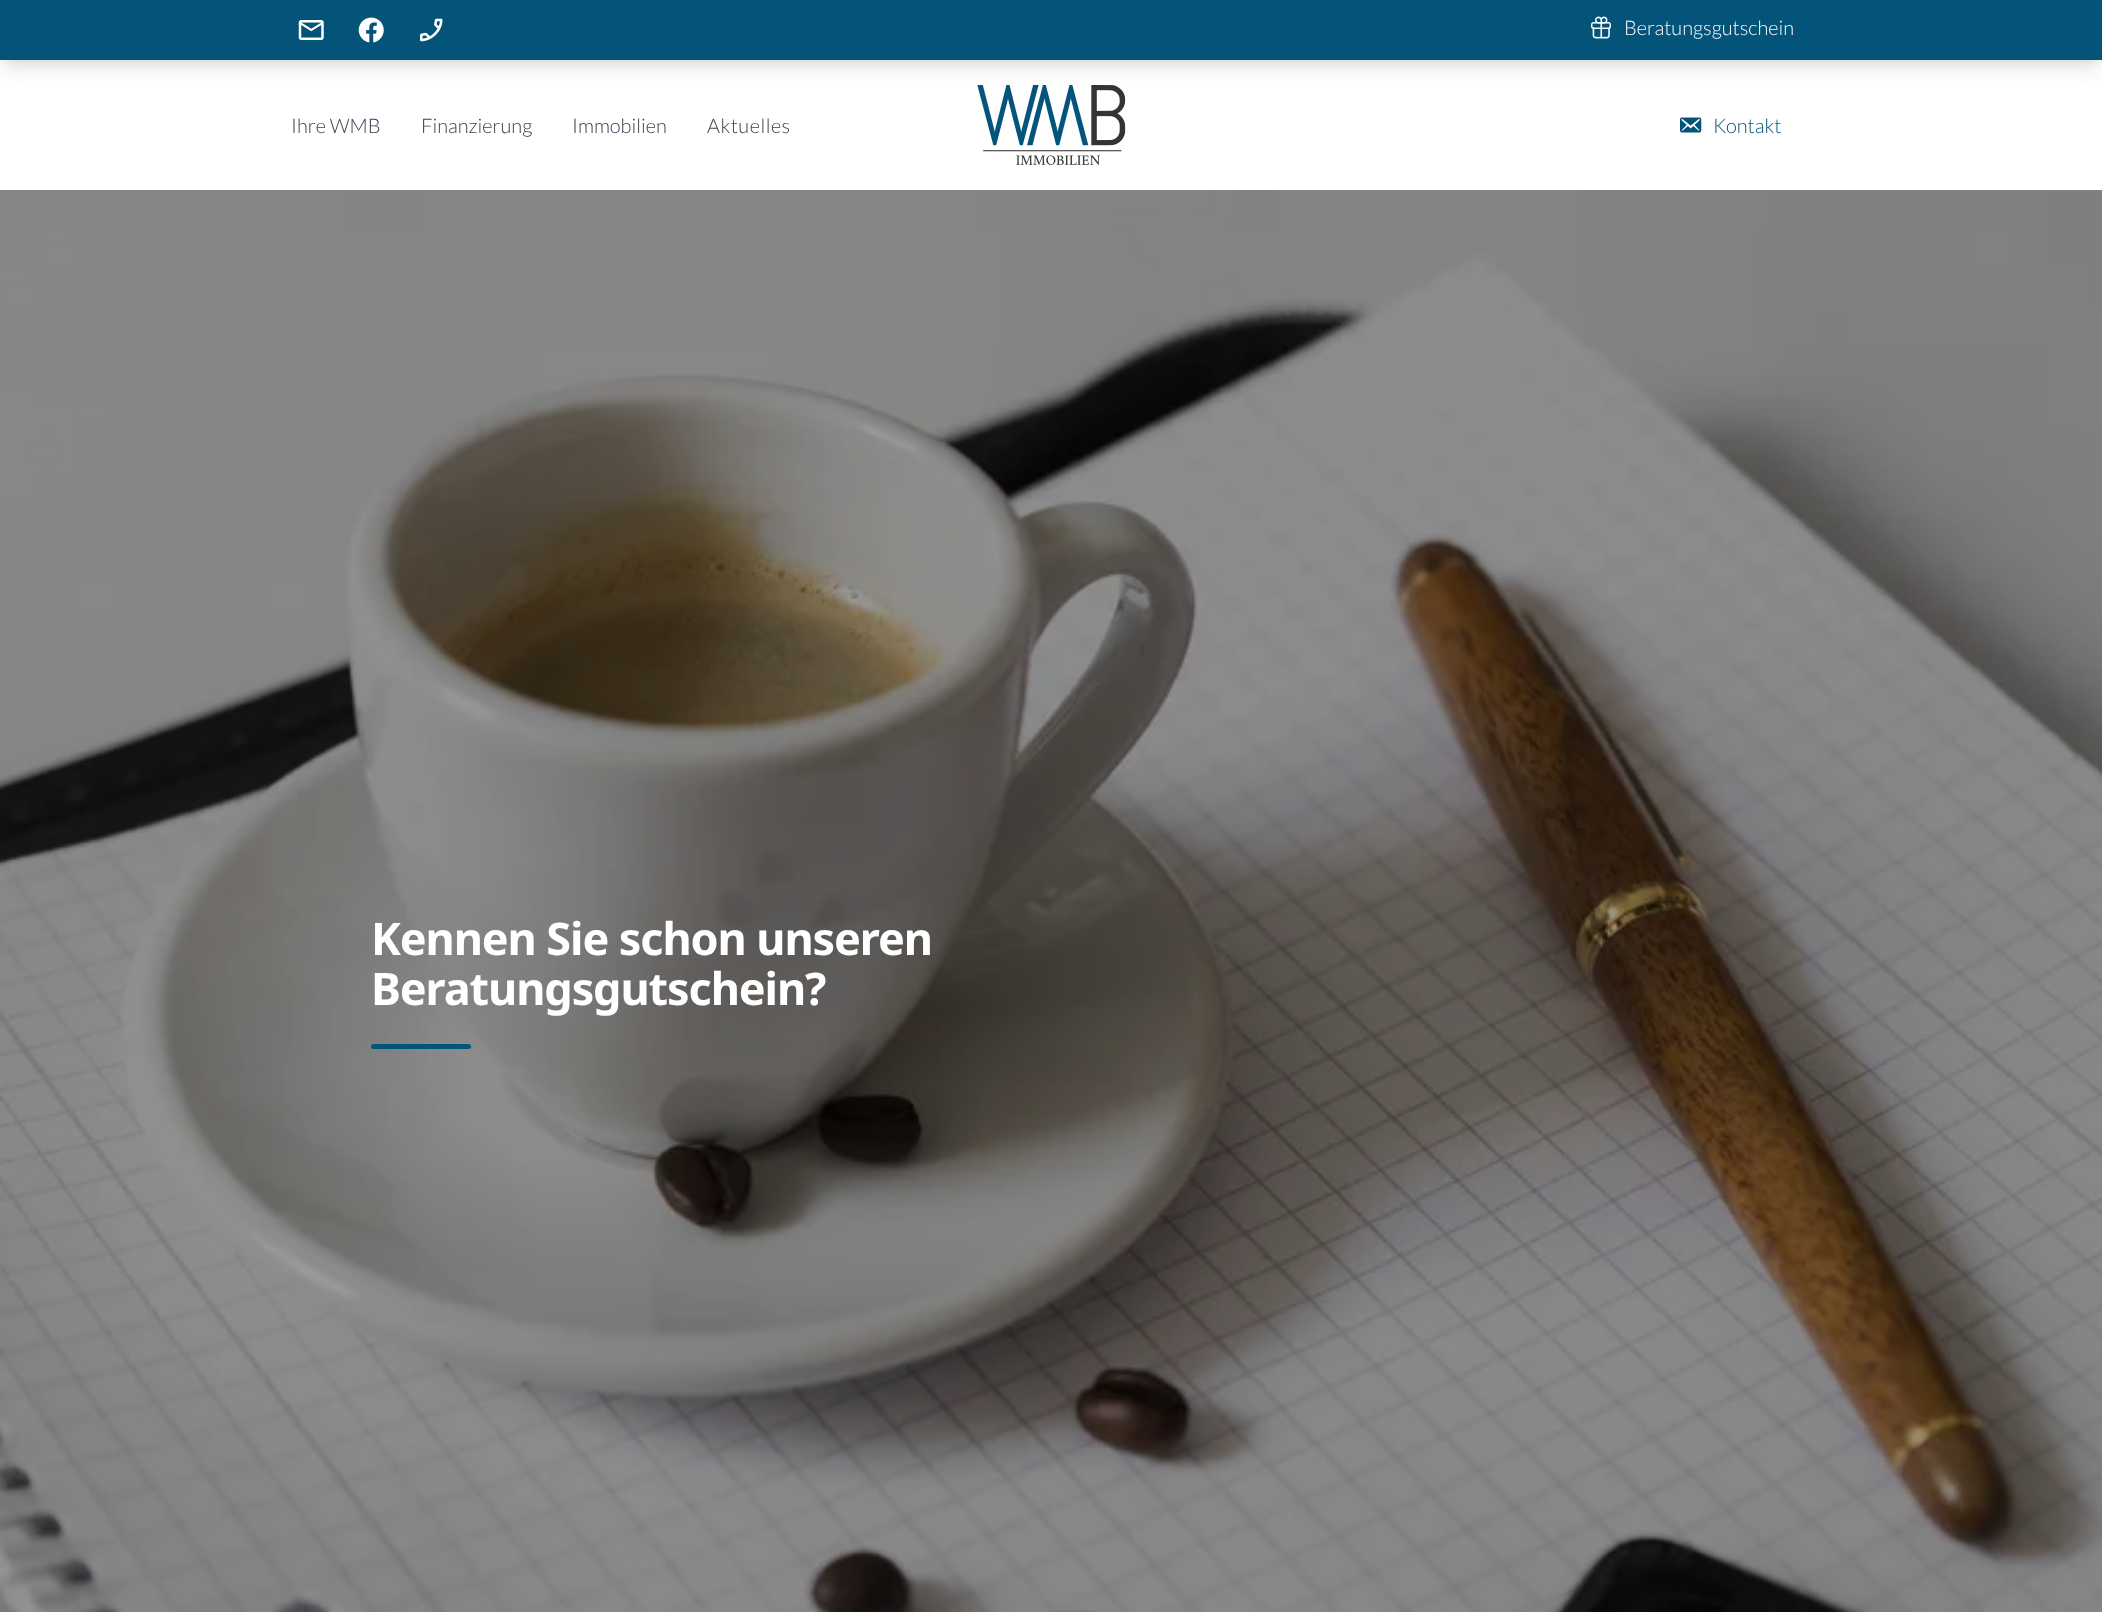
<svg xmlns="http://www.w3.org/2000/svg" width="2102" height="1612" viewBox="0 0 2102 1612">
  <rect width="100%" height="100%" fill="rgb(255,255,255)"/>
  <rect x="5" y="10" width="2093" height="50" fill="rgba(0,0,0,0.1)" filter="blur(4px)"/>
  <image x="977" y="85" width="149" height="80" href="pic5.png"/>
  <rect x="4" y="16" width="2095" height="53" fill="rgba(0,0,0,0.1)" filter="blur(9.5px)"/>
  <rect x="0" y="0" width="2102" height="60" fill="rgb(4,84,122)"/>
  <image x="298" y="20" width="26" height="20" href="pic1.png"/>
  <image x="358" y="17" width="26" height="26" href="pic2.png"/>
  <image x="420" y="18" width="23" height="24" href="pic3.png"/>
  <image x="1591" y="16" width="20" height="23" href="pic4.png"/>
  <text x="1624" y="35" font-family="Lato" font-size="20" font-weight="300" fill="rgb(249,250,251)">Beratungsgutschein</text>
  <g font-family="Lato" font-size="20" font-weight="300" fill="rgb(55,65,81)">
    <text x="291" y="133">Ihre WMB</text>
    <text x="421" y="133">Finanzierung</text>
    <text x="572" y="133">Immobilien</text>
  </g>
  <text x="707" y="133" font-family="Lato" font-size="20" font-weight="300" letter-spacing="0.5" fill="rgb(55,65,81)">Aktuelles</text>
  <image x="1680" y="117" width="22" height="16" href="pic6.png"/>
  <text x="1713" y="133" font-family="Lato" font-size="20" font-weight="300" fill="rgb(4,84,122)">Kontakt</text>
  <image x="0" y="190" width="2102" height="1422" href="pic7.png"/>
  <g font-family="Noto Sans" font-size="45" font-weight="bold" letter-spacing="-1.1" fill="rgb(255,255,255)">
    <text>
      <tspan x="371" y="955">Kennen Sie schon unseren</tspan>
      <tspan x="371" y="1005">Beratungsgutschein?</tspan>
    </text>
  </g>
  <rect x="371" y="1044" width="100" height="5" rx="2.5" fill="rgb(4,84,122)"/>
</svg>
